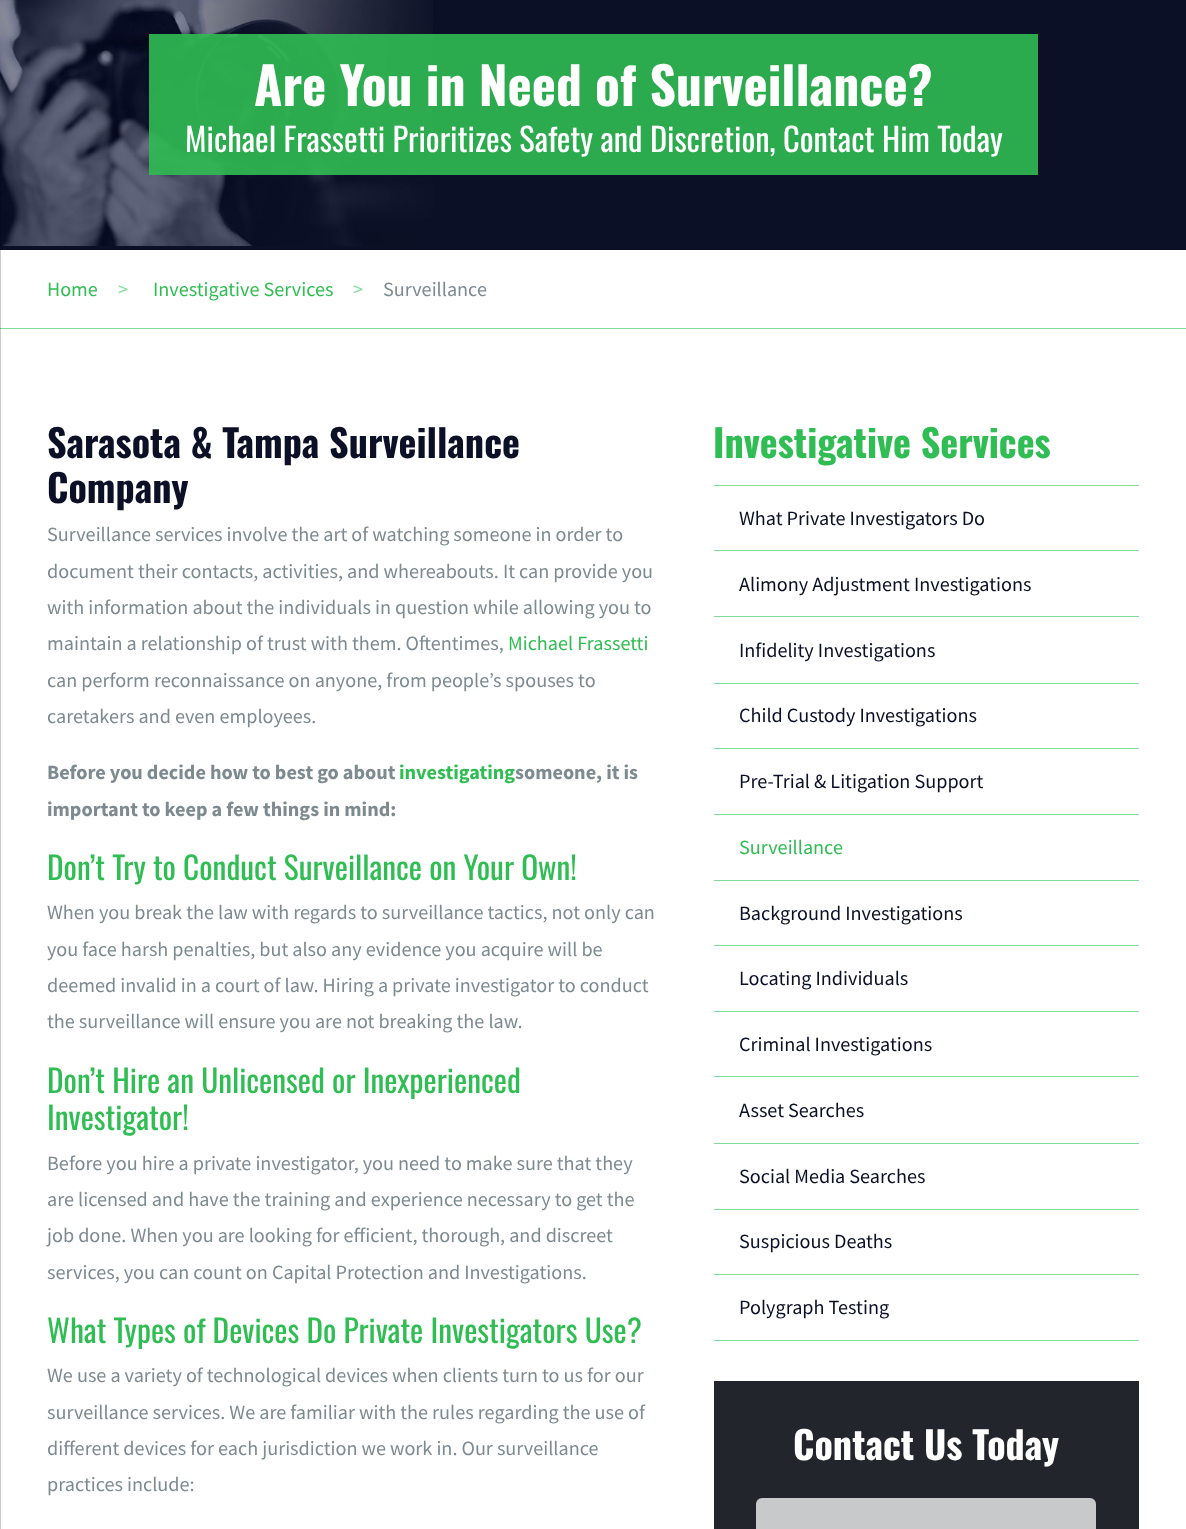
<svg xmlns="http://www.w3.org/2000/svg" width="1186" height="1529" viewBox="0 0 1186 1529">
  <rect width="100%" height="100%" fill="rgb(255,255,255)"/>
  <image x="0" y="0" width="433" height="246" href="pic1.png"/>
  <rect x="0" y="246" width="1186" height="4" fill="rgb(11,16,38)"/>
  <rect x="0" y="328" width="1186" height="1" fill="rgb(130,221,151)"/>
  <rect x="0" y="171" width="1" height="1358" fill="rgba(0,0,0,0.2)"/>
  <rect x="433" y="0" width="753" height="246" fill="rgb(11,16,38)"/>
  <rect x="149" y="34" width="889" height="141" fill="rgba(48,189,83,0.9)"/>
  <text x="254" y="106" font-family="Oswald" font-size="51.5" font-weight="bold" fill="rgb(255,255,255)">Are You in Need of Surveillance?</text>
  <text x="185" y="152" font-family="Oswald" font-size="32.5" fill="rgb(255,255,255)">Michael Frassetti Prioritizes Safety and Discretion, Contact Him Today</text>
  <text x="47" y="296" font-family="Source Sans Pro" font-size="20.2" fill="rgb(48,189,83)">Home</text>
  <text x="118" y="296" font-family="Source Sans Pro" font-size="20.2" fill="rgb(130,221,151)">&gt;</text>
  <text x="153" y="296" font-family="Source Sans Pro" font-size="20.2" fill="rgb(48,189,83)">Investigative Services</text>
  <text x="353" y="296" font-family="Source Sans Pro" font-size="20.2" fill="rgb(130,221,151)">&gt;</text>
  <text x="383" y="296" font-family="Source Sans Pro" font-size="20.2" fill="rgb(125,138,144)">Surveillance</text>
  <g font-family="Oswald" font-size="38.1" font-weight="bold" fill="rgb(11,16,38)">
    <text>
      <tspan x="47" y="458">Sarasota &amp; Tampa Surveillance</tspan>
      <tspan x="47" y="503">Company</tspan>
    </text>
  </g>
  <g font-family="Source Sans Pro" font-size="20.2" fill="rgb(125,138,144)">
    <text>
      <tspan x="47" y="541">Surveillance services involve the art of watching someone in order to</tspan>
      <tspan x="47" y="578">document their contacts, activities, and whereabouts. It can provide you</tspan>
      <tspan x="47" y="614">with information about the individuals in question while allowing you to</tspan>
      <tspan x="47" y="650">maintain a relationship of trust with them. Oftentimes,</tspan>
    </text>
  </g>
  <text x="508" y="650" font-family="Source Sans Pro" font-size="20.2" fill="rgb(48,189,83)">Michael Frassetti</text>
  <g font-family="Source Sans Pro" font-size="20.2" fill="rgb(125,138,144)">
    <text>
      <tspan x="47" y="687">can perform reconnaissance on anyone, from people’s spouses to</tspan>
      <tspan x="47" y="723">caretakers and even employees.</tspan>
    </text>
  </g>
  <text x="47" y="779" font-family="Source Sans Pro" font-size="20.2" font-weight="bold" fill="rgb(125,138,144)">Before you decide how to best go about</text>
  <text x="399" y="779" font-family="Source Sans Pro" font-size="20.2" font-weight="bold" fill="rgb(48,189,83)">investigating</text>
  <g font-family="Source Sans Pro" font-size="20.2" font-weight="bold" fill="rgb(125,138,144)">
    <text x="515" y="779">someone, it is</text>
    <text x="47" y="816">important to keep a few things in mind:</text>
  </g>
  <text x="47" y="880" font-family="Oswald" font-size="31.4" fill="rgb(48,189,83)">Don’t Try to Conduct Surveillance on Your Own!</text>
  <g font-family="Source Sans Pro" font-size="20.2" fill="rgb(125,138,144)">
    <text>
      <tspan x="47" y="919">When you break the law with regards to surveillance tactics, not only can</tspan>
      <tspan x="47" y="956">you face harsh penalties, but also any evidence you acquire will be</tspan>
      <tspan x="47" y="992">deemed invalid in a court of law. Hiring a private investigator to conduct</tspan>
      <tspan x="47" y="1028">the surveillance will ensure you are not breaking the law.</tspan>
    </text>
  </g>
  <g font-family="Oswald" font-size="31.4" fill="rgb(48,189,83)">
    <text>
      <tspan x="47" y="1093">Don’t Hire an Unlicensed or Inexperienced</tspan>
      <tspan x="47" y="1130">Investigator!</tspan>
    </text>
  </g>
  <g font-family="Source Sans Pro" font-size="20.2" fill="rgb(125,138,144)">
    <text>
      <tspan x="47" y="1170">Before you hire a private investigator, you need to make sure that they</tspan>
      <tspan x="47" y="1206">are licensed and have the training and experience necessary to get the</tspan>
      <tspan x="47" y="1242">job done. When you are looking for efficient, thorough, and discreet</tspan>
      <tspan x="47" y="1279">services, you can count on Capital Protection and Investigations.</tspan>
    </text>
  </g>
  <text x="47" y="1343" font-family="Oswald" font-size="31.4" fill="rgb(48,189,83)">What Types of Devices Do Private Investigators Use?</text>
  <g font-family="Source Sans Pro" font-size="20.2" fill="rgb(125,138,144)">
    <text>
      <tspan x="47" y="1382">We use a variety of technological devices when clients turn to us for our</tspan>
      <tspan x="47" y="1419">surveillance services. We are familiar with the rules regarding the use</tspan>
    </text>
    <text x="628" y="1419">of</text>
    <text>
      <tspan x="47" y="1455">different devices for each jurisdiction we work in. Our surveillance</tspan>
      <tspan x="47" y="1491">practices include:</tspan>
    </text>
  </g>
  <rect x="714" y="485" width="425" height="1" fill="rgb(130,221,151)"/>
  <text x="713" y="458" font-family="Oswald" font-size="38.1" font-weight="bold" fill="rgb(48,189,83)">Investigative Services</text>
  <rect x="714" y="550" width="425" height="1" fill="rgb(130,221,151)"/>
  <text x="739" y="525" font-family="Source Sans Pro" font-size="20.2" fill="rgb(11,16,38)">What Private Investigators Do</text>
  <rect x="714" y="616" width="425" height="1" fill="rgb(130,221,151)"/>
  <text x="739" y="591" font-family="Source Sans Pro" font-size="20.2" fill="rgb(11,16,38)">Alimony Adjustment Investigations</text>
  <rect x="714" y="683" width="425" height="1" fill="rgb(130,221,151)"/>
  <text x="739" y="657" font-family="Source Sans Pro" font-size="20.2" fill="rgb(11,16,38)">Infidelity Investigations</text>
  <rect x="714" y="748" width="425" height="1" fill="rgb(130,221,151)"/>
  <text x="739" y="722" font-family="Source Sans Pro" font-size="20.2" fill="rgb(11,16,38)">Child Custody Investigations</text>
  <rect x="714" y="814" width="425" height="1" fill="rgb(130,221,151)"/>
  <text x="739" y="788" font-family="Source Sans Pro" font-size="20.2" fill="rgb(11,16,38)">Pre-Trial &amp; Litigation Support</text>
  <rect x="714" y="880" width="425" height="1" fill="rgb(130,221,151)"/>
  <text x="739" y="854" font-family="Source Sans Pro" font-size="20.2" fill="rgb(48,189,83)">Surveillance</text>
  <rect x="714" y="945" width="425" height="1" fill="rgb(130,221,151)"/>
  <text x="739" y="920" font-family="Source Sans Pro" font-size="20.2" fill="rgb(11,16,38)">Background Investigations</text>
  <rect x="714" y="1011" width="425" height="1" fill="rgb(130,221,151)"/>
  <text x="739" y="985" font-family="Source Sans Pro" font-size="20.2" fill="rgb(11,16,38)">Locating Individuals</text>
  <rect x="714" y="1076" width="425" height="1" fill="rgb(130,221,151)"/>
  <text x="739" y="1051" font-family="Source Sans Pro" font-size="20.2" fill="rgb(11,16,38)">Criminal Investigations</text>
  <rect x="714" y="1143" width="425" height="1" fill="rgb(130,221,151)"/>
  <text x="739" y="1117" font-family="Source Sans Pro" font-size="20.2" fill="rgb(11,16,38)">Asset Searches</text>
  <rect x="714" y="1209" width="425" height="1" fill="rgb(130,221,151)"/>
  <text x="739" y="1183" font-family="Source Sans Pro" font-size="20.2" fill="rgb(11,16,38)">Social Media Searches</text>
  <rect x="714" y="1274" width="425" height="1" fill="rgb(130,221,151)"/>
  <text x="739" y="1248" font-family="Source Sans Pro" font-size="20.2" fill="rgb(11,16,38)">Suspicious Deaths</text>
  <rect x="714" y="1340" width="425" height="1" fill="rgb(130,221,151)"/>
  <text x="739" y="1314" font-family="Source Sans Pro" font-size="20.2" fill="rgb(11,16,38)">Polygraph Testing</text>
  <rect x="714" y="1381" width="425" height="148" fill="rgb(35,37,44)"/>
  <text x="793" y="1460" font-family="Oswald" font-size="38.1" font-weight="bold" fill="rgb(255,255,255)">Contact Us Today</text>
  <rect x="756" y="1498" width="340" height="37" rx="6" fill="rgb(200,201,202)"/>
</svg>
